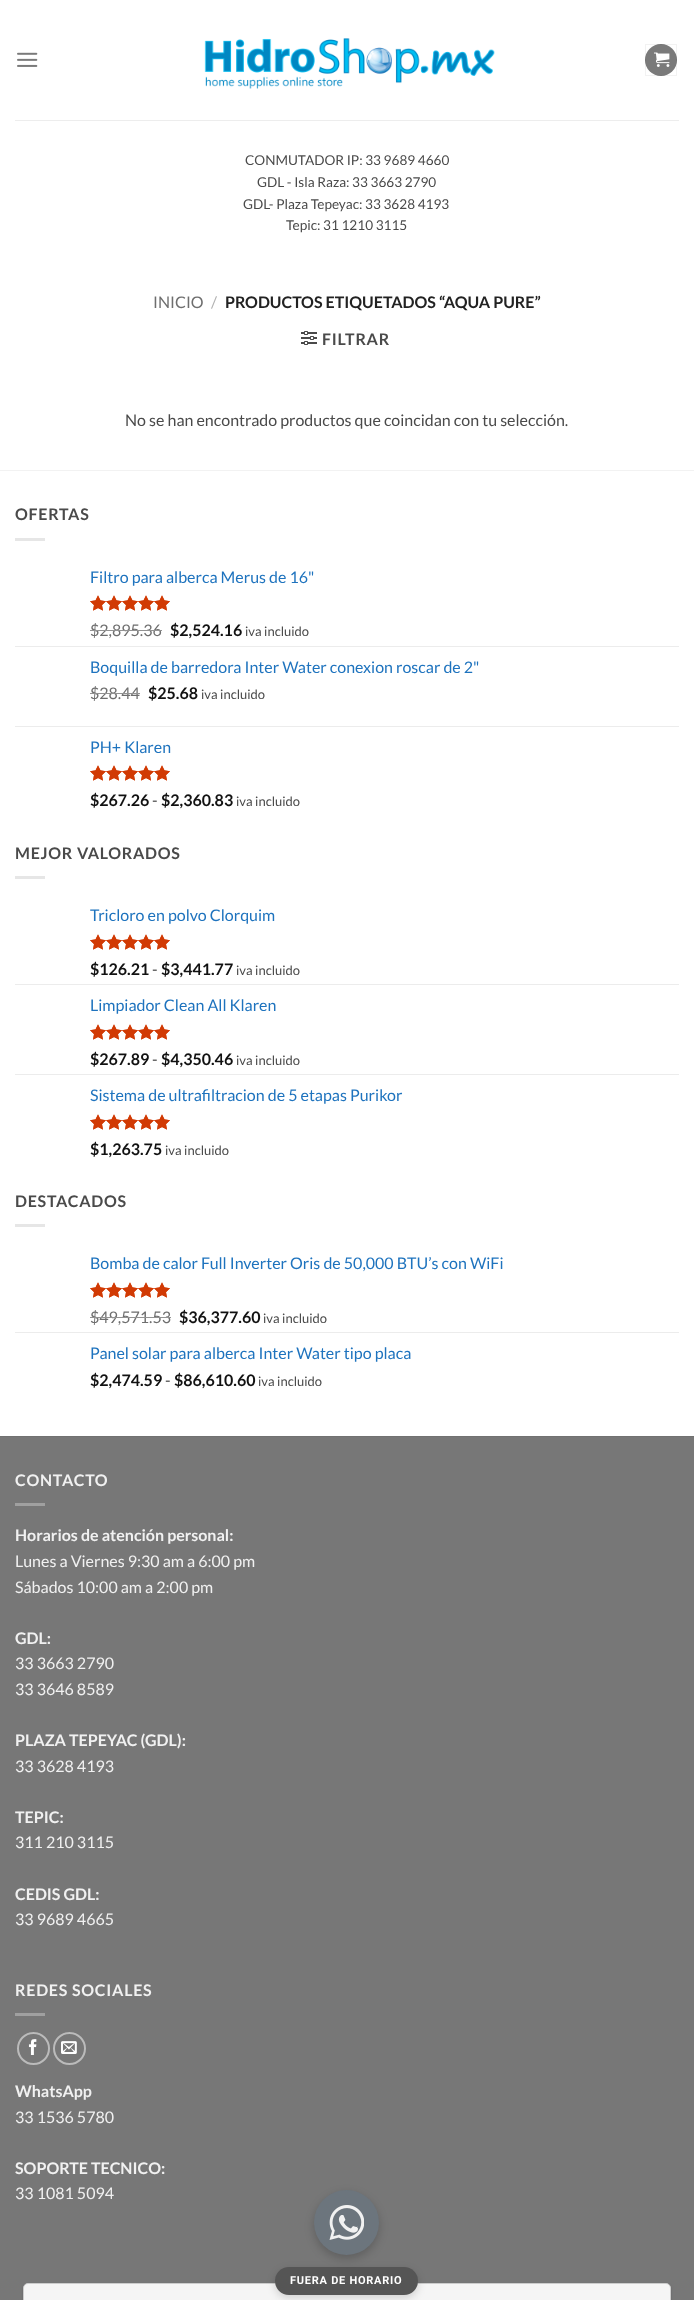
<svg xmlns="http://www.w3.org/2000/svg" width="694" height="2300" viewBox="0 0 694 2300">
  <rect width="100%" height="100%" fill="rgb(255,255,255)"/>
  <image x="17" y="52" width="21" height="15" href="pic1.png"/>
  <image x="204" y="38" width="291" height="51" href="pic2.png"/>
  <circle cx="661" cy="60" r="16" fill="rgb(122,122,122)"/>
  <rect x="645.5" y="44.5" width="31" height="31" fill="none" stroke="rgba(0,0,0,0.05)"/>
  <image x="654" y="52" width="16" height="15" href="pic3.png"/>
  <rect x="15" y="120" width="664" height="1" fill="rgb(237,237,237)"/>
  <g font-family="Lato" font-size="13.6" fill="rgb(74,74,74)">
    <text x="245" y="165">CONMUTADOR IP: 33 9689 4660</text>
    <text x="257" y="187">GDL - Isla Raza: 33 3663 2790</text>
    <text x="243" y="209">GDL- Plaza Tepeyac: 33 3628 4193</text>
    <text x="286" y="230">Tepic: 31 1210 3115</text>
  </g>
  <text x="153" y="308" font-family="Lato" font-size="16" fill="rgb(110,110,110)">INICIO</text>
  <text x="211" y="308" font-family="Lato" font-size="16" fill="rgb(178,178,178)">/</text>
  <text x="225" y="308" font-family="Lato" font-size="16" font-weight="bold" fill="rgb(34,34,34)">PRODUCTOS ETIQUETADOS “AQUA PURE”</text>
  <image x="301" y="331" width="16" height="14" href="pic4.png"/>
  <text x="322" y="345" font-family="Lato" font-size="16" font-weight="bold" letter-spacing="0.75" fill="rgb(74,74,74)">FILTRAR</text>
  <text x="125" y="426" font-family="Lato" font-size="16" fill="rgb(74,74,74)">No se han encontrado productos que coincidan con tu selección.</text>
  <rect x="0" y="470" width="694" height="1" fill="rgb(242,242,242)"/>
  <text x="15" y="520" font-family="Lato" font-size="16" font-weight="bold" letter-spacing="0.75" fill="rgb(74,74,74)">OFERTAS</text>
  <rect x="15" y="538" width="30" height="3" fill="rgb(230,230,230)"/>
  <text x="90" y="583" font-family="Lato" font-size="16" fill="rgb(30,115,190)">Filtro para alberca Merus de 16"</text>
  <image x="90" y="595" width="80" height="16" href="pic5.png"/>
  <image x="90" y="595" width="80" height="16" href="pic6.png"/>
  <text x="90" y="636" font-family="Lato" font-size="16" fill="rgb(110,110,110)">$2,895.36</text>
  <rect x="90" y="630" width="72" height="1" fill="rgb(146,146,146)"/>
  <text x="170" y="636" font-family="Lato" font-size="16" font-weight="bold" fill="rgb(17,17,17)">$2,524.16</text>
  <text x="245" y="636" font-family="Lato" font-size="13" fill="rgb(74,74,74)">iva incluido</text>
  <rect x="15" y="646" width="664" height="1" fill="rgb(236,236,236)"/>
  <text x="90" y="673" font-family="Lato" font-size="16" fill="rgb(30,115,190)">Boquilla de barredora Inter Water conexion roscar de 2"</text>
  <text x="90" y="699" font-family="Lato" font-size="16" fill="rgb(110,110,110)">$28.44</text>
  <rect x="90" y="693" width="50" height="1" fill="rgb(146,146,146)"/>
  <text x="148" y="699" font-family="Lato" font-size="16" font-weight="bold" fill="rgb(17,17,17)">$25.68</text>
  <text x="201" y="699" font-family="Lato" font-size="13" fill="rgb(74,74,74)">iva incluido</text>
  <rect x="15" y="726" width="664" height="1" fill="rgb(236,236,236)"/>
  <text x="90" y="753" font-family="Lato" font-size="16" fill="rgb(30,115,190)">PH+ Klaren</text>
  <image x="90" y="765" width="80" height="16" href="pic5.png"/>
  <image x="90" y="765" width="80" height="16" href="pic6.png"/>
  <text x="90" y="806" font-family="Lato" font-size="16" font-weight="bold" fill="rgb(17,17,17)">$267.26</text>
  <text x="152" y="806" font-family="Lato" font-size="16" fill="rgb(74,74,74)">-</text>
  <text x="161" y="806" font-family="Lato" font-size="16" font-weight="bold" fill="rgb(17,17,17)">$2,360.83</text>
  <text x="236" y="806" font-family="Lato" font-size="13" fill="rgb(74,74,74)">iva incluido</text>
  <text x="15" y="859" font-family="Lato" font-size="16" font-weight="bold" letter-spacing="0.75" fill="rgb(74,74,74)">MEJOR VALORADOS</text>
  <rect x="15" y="876" width="30" height="3" fill="rgb(230,230,230)"/>
  <text x="90" y="921" font-family="Lato" font-size="16" fill="rgb(30,115,190)">Tricloro en polvo Clorquim</text>
  <image x="90" y="934" width="80" height="16" href="pic5.png"/>
  <image x="90" y="934" width="80" height="16" href="pic6.png"/>
  <text x="90" y="975" font-family="Lato" font-size="16" font-weight="bold" fill="rgb(17,17,17)">$126.21</text>
  <text x="152" y="975" font-family="Lato" font-size="16" fill="rgb(74,74,74)">-</text>
  <text x="161" y="975" font-family="Lato" font-size="16" font-weight="bold" fill="rgb(17,17,17)">$3,441.77</text>
  <text x="236" y="975" font-family="Lato" font-size="13" fill="rgb(74,74,74)">iva incluido</text>
  <rect x="15" y="984" width="664" height="1" fill="rgb(236,236,236)"/>
  <text x="90" y="1011" font-family="Lato" font-size="16" fill="rgb(30,115,190)">Limpiador Clean All Klaren</text>
  <image x="90" y="1024" width="80" height="16" href="pic5.png"/>
  <image x="90" y="1024" width="80" height="16" href="pic6.png"/>
  <text x="90" y="1065" font-family="Lato" font-size="16" font-weight="bold" fill="rgb(17,17,17)">$267.89</text>
  <text x="152" y="1065" font-family="Lato" font-size="16" fill="rgb(74,74,74)">-</text>
  <text x="161" y="1065" font-family="Lato" font-size="16" font-weight="bold" fill="rgb(17,17,17)">$4,350.46</text>
  <text x="236" y="1065" font-family="Lato" font-size="13" fill="rgb(74,74,74)">iva incluido</text>
  <rect x="15" y="1074" width="664" height="1" fill="rgb(236,236,236)"/>
  <text x="90" y="1101" font-family="Lato" font-size="16" fill="rgb(30,115,190)">Sistema de ultrafiltracion de 5 etapas Purikor</text>
  <image x="90" y="1114" width="80" height="16" href="pic5.png"/>
  <image x="90" y="1114" width="80" height="16" href="pic6.png"/>
  <text x="90" y="1155" font-family="Lato" font-size="16" font-weight="bold" fill="rgb(17,17,17)">$1,263.75</text>
  <text x="165" y="1155" font-family="Lato" font-size="13" fill="rgb(74,74,74)">iva incluido</text>
  <text x="15" y="1207" font-family="Lato" font-size="16" font-weight="bold" letter-spacing="0.75" fill="rgb(74,74,74)">DESTACADOS</text>
  <rect x="15" y="1224" width="30" height="3" fill="rgb(230,230,230)"/>
  <text x="90" y="1269" font-family="Lato" font-size="16" fill="rgb(30,115,190)">Bomba de calor Full Inverter Oris de 50,000 BTU’s con WiFi</text>
  <image x="90" y="1282" width="80" height="16" href="pic5.png"/>
  <image x="90" y="1282" width="80" height="16" href="pic6.png"/>
  <text x="90" y="1323" font-family="Lato" font-size="16" fill="rgb(110,110,110)">$49,571.53</text>
  <rect x="90" y="1317" width="81" height="1" fill="rgb(146,146,146)"/>
  <text x="179" y="1323" font-family="Lato" font-size="16" font-weight="bold" fill="rgb(17,17,17)">$36,377.60</text>
  <text x="263" y="1323" font-family="Lato" font-size="13" fill="rgb(74,74,74)">iva incluido</text>
  <rect x="15" y="1332" width="664" height="1" fill="rgb(236,236,236)"/>
  <text x="90" y="1359" font-family="Lato" font-size="16" fill="rgb(30,115,190)">Panel solar para alberca Inter Water tipo placa</text>
  <text x="90" y="1386" font-family="Lato" font-size="16" font-weight="bold" fill="rgb(17,17,17)">$2,474.59</text>
  <text x="165" y="1386" font-family="Lato" font-size="16" fill="rgb(74,74,74)">-</text>
  <text x="174" y="1386" font-family="Lato" font-size="16" font-weight="bold" fill="rgb(17,17,17)">$86,610.60</text>
  <text x="258" y="1386" font-family="Lato" font-size="13" fill="rgb(74,74,74)">iva incluido</text>
  <rect x="0" y="1437" width="694" height="863" fill="rgb(119,119,119)"/>
  <rect x="0" y="1436" width="694" height="1" fill="rgb(113,113,113)"/>
  <text x="15" y="1486" font-family="Lato" font-size="16" font-weight="bold" letter-spacing="0.75" fill="rgb(241,241,241)">CONTACTO</text>
  <rect x="15" y="1503" width="30" height="3" fill="rgb(160,160,160)"/>
  <text x="15" y="1541" font-family="Lato" font-size="16" font-weight="bold" fill="rgb(241,241,241)">Horarios de atención personal:</text>
  <g font-family="Lato" font-size="16" fill="rgb(241,241,241)">
    <text>
      <tspan x="15" y="1567">Lunes a Viernes 9:30 am a 6:00 pm</tspan>
      <tspan x="15" y="1593">Sábados 10:00 am a 2:00 pm</tspan>
    </text>
  </g>
  <text x="15" y="1644" font-family="Lato" font-size="16" font-weight="bold" fill="rgb(241,241,241)">GDL:</text>
  <g font-family="Lato" font-size="16" fill="rgb(241,241,241)">
    <text>
      <tspan x="15" y="1669">33 3663 2790</tspan>
      <tspan x="15" y="1695">33 3646 8589</tspan>
    </text>
  </g>
  <text x="15" y="1746" font-family="Lato" font-size="16" font-weight="bold" fill="rgb(241,241,241)">PLAZA TEPEYAC (GDL):</text>
  <text x="15" y="1772" font-family="Lato" font-size="16" fill="rgb(241,241,241)">33 3628 4193</text>
  <text x="15" y="1823" font-family="Lato" font-size="16" font-weight="bold" fill="rgb(241,241,241)">TEPIC:</text>
  <text x="15" y="1848" font-family="Lato" font-size="16" fill="rgb(241,241,241)">311 210 3115</text>
  <text x="15" y="1900" font-family="Lato" font-size="16" font-weight="bold" fill="rgb(241,241,241)">CEDIS GDL:</text>
  <text x="15" y="1925" font-family="Lato" font-size="16" fill="rgb(241,241,241)">33 9689 4665</text>
  <text x="15" y="1996" font-family="Lato" font-size="16" font-weight="bold" letter-spacing="0.75" fill="rgb(241,241,241)">REDES SOCIALES</text>
  <rect x="15" y="2013" width="30" height="3" fill="rgb(160,160,160)"/>
  <circle cx="33.5" cy="2048.5" r="15.5" fill="none" stroke="rgb(187,187,187)" stroke-width="2"/>
  <image x="28" y="2039" width="9" height="16" href="pic7.png"/>
  <circle cx="69.5" cy="2048.5" r="15.5" fill="none" stroke="rgb(187,187,187)" stroke-width="2"/>
  <image x="61" y="2041" width="16" height="13" href="pic8.png"/>
  <text x="15" y="2097" font-family="Lato" font-size="16" font-weight="bold" fill="rgb(241,241,241)">WhatsApp</text>
  <text x="15" y="2123" font-family="Lato" font-size="16" fill="rgb(241,241,241)">33 1536 5780</text>
  <text x="15" y="2174" font-family="Lato" font-size="16" font-weight="bold" fill="rgb(241,241,241)">SOPORTE TECNICO:</text>
  <text x="15" y="2199" font-family="Lato" font-size="16" fill="rgb(241,241,241)">33 1081 5094</text>
  <rect x="23" y="2284" width="648" height="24" rx="5" fill="rgba(60,64,67,0.3)" filter="blur(1px)"/>
  <rect x="23.5" y="2283.5" width="647" height="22" rx="4.5" fill="rgb(245,245,245)" stroke="rgb(204,204,204)"/>
  <rect x="275" y="2270" width="143" height="28" rx="14" fill="rgba(0,0,0,0.15)" filter="blur(4px)"/>
  <rect x="275" y="2267" width="143" height="28" rx="14" fill="rgb(85,85,85)"/>
  <rect x="314" y="2194" width="65" height="65" rx="32.5" fill="rgba(0,0,0,0.2)" filter="blur(5px)"/>
  <circle cx="346.5" cy="2222.5" r="32.5" fill="rgb(108,117,125)"/>
  <image x="329" y="2205" width="35" height="35" href="pic9.png"/>
  <text x="290" y="2284" font-family="Roboto" font-size="11" font-weight="bold" letter-spacing="0.75" fill="rgb(255,255,255)">FUERA DE HORARIO</text>
</svg>
